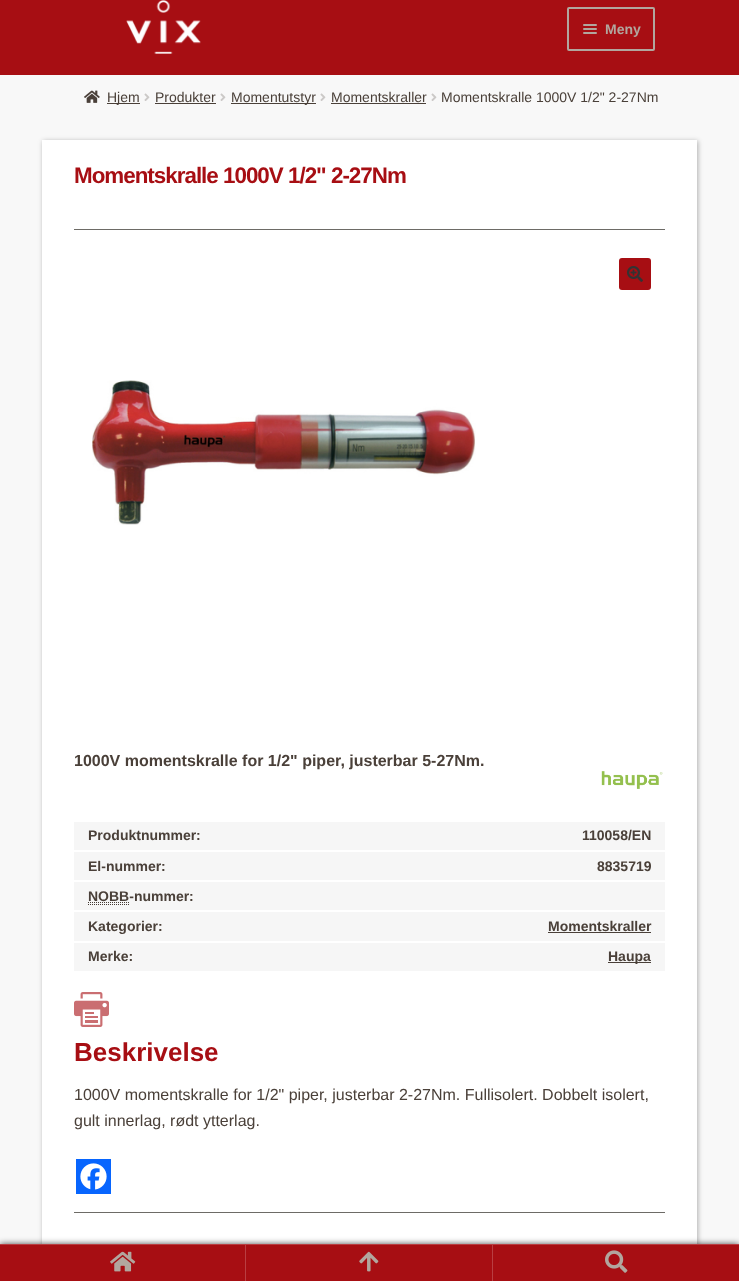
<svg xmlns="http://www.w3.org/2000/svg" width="739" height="1281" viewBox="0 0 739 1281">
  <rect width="100%" height="100%" fill="rgb(248,248,248)"/>
  <rect x="0" y="0" width="739" height="75" fill="rgb(167,14,19)"/>
  <image x="126" y="0" width="75" height="54" href="pic1.png"/>
  <rect x="568" y="8" width="86" height="42" rx="1" fill="none" stroke="rgb(178,166,158)" stroke-width="2"/>
  <rect x="583" y="24" width="14" height="2" rx="1" fill="rgb(178,166,158)"/>
  <rect x="583" y="28" width="14" height="2" rx="1" fill="rgb(178,166,158)"/>
  <text x="605" y="34" font-family="Liberation Sans" font-size="14" font-weight="bold" fill="rgb(178,166,158)">Meny</text>
  <rect x="583" y="32" width="14" height="2" rx="1" fill="rgb(178,166,158)"/>
  <image x="84" y="90" width="16" height="13" href="pic2.png"/>
  <rect x="107" y="103" width="33" height="1" fill="rgb(74,64,57)"/>
  <text x="107" y="102" font-family="Liberation Sans" font-size="14" fill="rgb(74,64,57)">Hjem</text>
  <image x="144" y="93" width="6" height="8" href="pic3.png"/>
  <text x="155" y="102" font-family="Liberation Sans" font-size="14" fill="rgb(74,64,57)">Produkter</text>
  <rect x="155" y="103" width="61" height="1" fill="rgb(74,64,57)"/>
  <image x="220" y="93" width="6" height="8" href="pic3.png"/>
  <rect x="231" y="103" width="85" height="1" fill="rgb(74,64,57)"/>
  <text x="231" y="102" font-family="Liberation Sans" font-size="14" fill="rgb(74,64,57)">Momentutstyr</text>
  <image x="320" y="93" width="6" height="8" href="pic3.png"/>
  <text x="331" y="102" font-family="Liberation Sans" font-size="14" fill="rgb(74,64,57)">Momentskraller</text>
  <rect x="331" y="103" width="95" height="1" fill="rgb(74,64,57)"/>
  <image x="431" y="93" width="6" height="8" href="pic3.png"/>
  <text x="441" y="102" font-family="Liberation Sans" font-size="14" fill="rgb(74,64,57)">Momentskralle 1000V 1/2" 2-27Nm</text>
  <rect x="43" y="141" width="655" height="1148" fill="rgba(0,0,0,0.3)" filter="blur(2.5px)"/>
  <rect x="42" y="140" width="655" height="1104" fill="rgb(255,255,255)"/>
  <rect x="74" y="229" width="591" height="1" fill="rgb(109,107,102)"/>
  <text x="74" y="183" font-family="Liberation Sans" font-size="22.4" font-weight="bold" letter-spacing="-1" fill="rgb(167,14,19)">Momentskralle 1000V 1/2" 2-27Nm</text>
  <text x="74" y="766" font-family="Liberation Sans" font-size="16" font-weight="bold" fill="rgb(74,64,57)">1000V momentskralle for 1/2" piper, justerbar 5-27Nm.</text>
  <image x="601" y="771" width="62" height="18" href="pic4.png"/>
  <rect x="74" y="822" width="591" height="28" fill="rgb(246,246,246)"/>
  <g font-family="Liberation Sans" font-size="14" font-weight="bold" fill="rgb(74,64,57)">
    <text x="88" y="840">Produktnummer:</text>
    <text x="582" y="840">110058/EN</text>
  </g>
  <rect x="74" y="852" width="591" height="28" fill="rgb(246,246,246)"/>
  <g font-family="Liberation Sans" font-size="14" font-weight="bold" fill="rgb(74,64,57)">
    <text x="88" y="871">El-nummer:</text>
    <text x="597" y="871">8835719</text>
  </g>
  <rect x="74" y="882" width="591" height="28" fill="rgb(246,246,246)"/>
  <text x="88" y="901" font-family="Liberation Sans" font-size="14" font-weight="bold" fill="rgb(74,64,57)">NOBB-nummer:</text>
  <path d="M88 904.5H129M88 902.5H129" fill="none" stroke="rgb(69,59,52)" stroke-dasharray="1 1"/>
  <rect x="74" y="912" width="591" height="29" fill="rgb(246,246,246)"/>
  <g font-family="Liberation Sans" font-size="14" font-weight="bold" fill="rgb(74,64,57)">
    <text x="88" y="931">Kategorier:</text>
    <text x="548" y="931">Momentskraller</text>
  </g>
  <rect x="548" y="932" width="103" height="1" fill="rgb(74,64,57)"/>
  <rect x="74" y="943" width="591" height="28" fill="rgb(246,246,246)"/>
  <text x="88" y="961" font-family="Liberation Sans" font-size="14" font-weight="bold" fill="rgb(74,64,57)">Merke:</text>
  <rect x="608" y="962" width="43" height="1" fill="rgb(74,64,57)"/>
  <text x="608" y="961" font-family="Liberation Sans" font-size="14" font-weight="bold" fill="rgb(74,64,57)">Haupa</text>
  <image x="74" y="992" width="35" height="35" href="pic5.png"/>
  <rect x="619" y="258" width="32" height="32" rx="3" fill="rgb(167,14,19)"/>
  <image x="627" y="266" width="16" height="16" href="pic6.png"/>
  <image x="92" y="380" width="384" height="145" href="pic7.png"/>
  <text x="74" y="1061" font-family="Liberation Sans" font-size="26" font-weight="bold" fill="rgb(167,14,19)">Beskrivelse</text>
  <g font-family="Liberation Sans" font-size="16" fill="rgb(74,64,57)">
    <text>
      <tspan x="74" y="1100">1000V momentskralle for 1/2" piper, justerbar 2-27Nm. Fullisolert. Dobbelt isolert,</tspan>
      <tspan x="74" y="1126">gult innerlag, rødt ytterlag.</tspan>
    </text>
  </g>
  <rect x="76" y="1159" width="35" height="35" fill="rgb(7,101,254)"/>
  <image x="80" y="1163" width="27" height="27" href="pic8.png"/>
  <rect x="74" y="1212" width="591" height="1" fill="rgb(109,107,102)"/>
  <rect x="0" y="1244" width="739" height="37" fill="rgba(0,0,0,0.7)" filter="blur(3px)"/>
  <rect x="0" y="1244" width="739" height="1" fill="rgb(185,62,66)"/>
  <rect x="0" y="1245" width="245" height="36" fill="rgb(167,14,19)"/>
  <rect x="245" y="1245" width="1" height="36" fill="rgb(185,62,66)"/>
  <image x="110" y="1251" width="26" height="21" href="pic9.png"/>
  <rect x="246" y="1245" width="246" height="36" fill="rgb(167,14,19)"/>
  <rect x="492" y="1245" width="1" height="36" fill="rgb(185,62,66)"/>
  <image x="359" y="1251" width="20" height="21" href="pic10.png"/>
  <rect x="493" y="1245" width="246" height="36" fill="rgb(167,14,19)"/>
  <image x="605" y="1250" width="23" height="23" href="pic11.png"/>
</svg>
